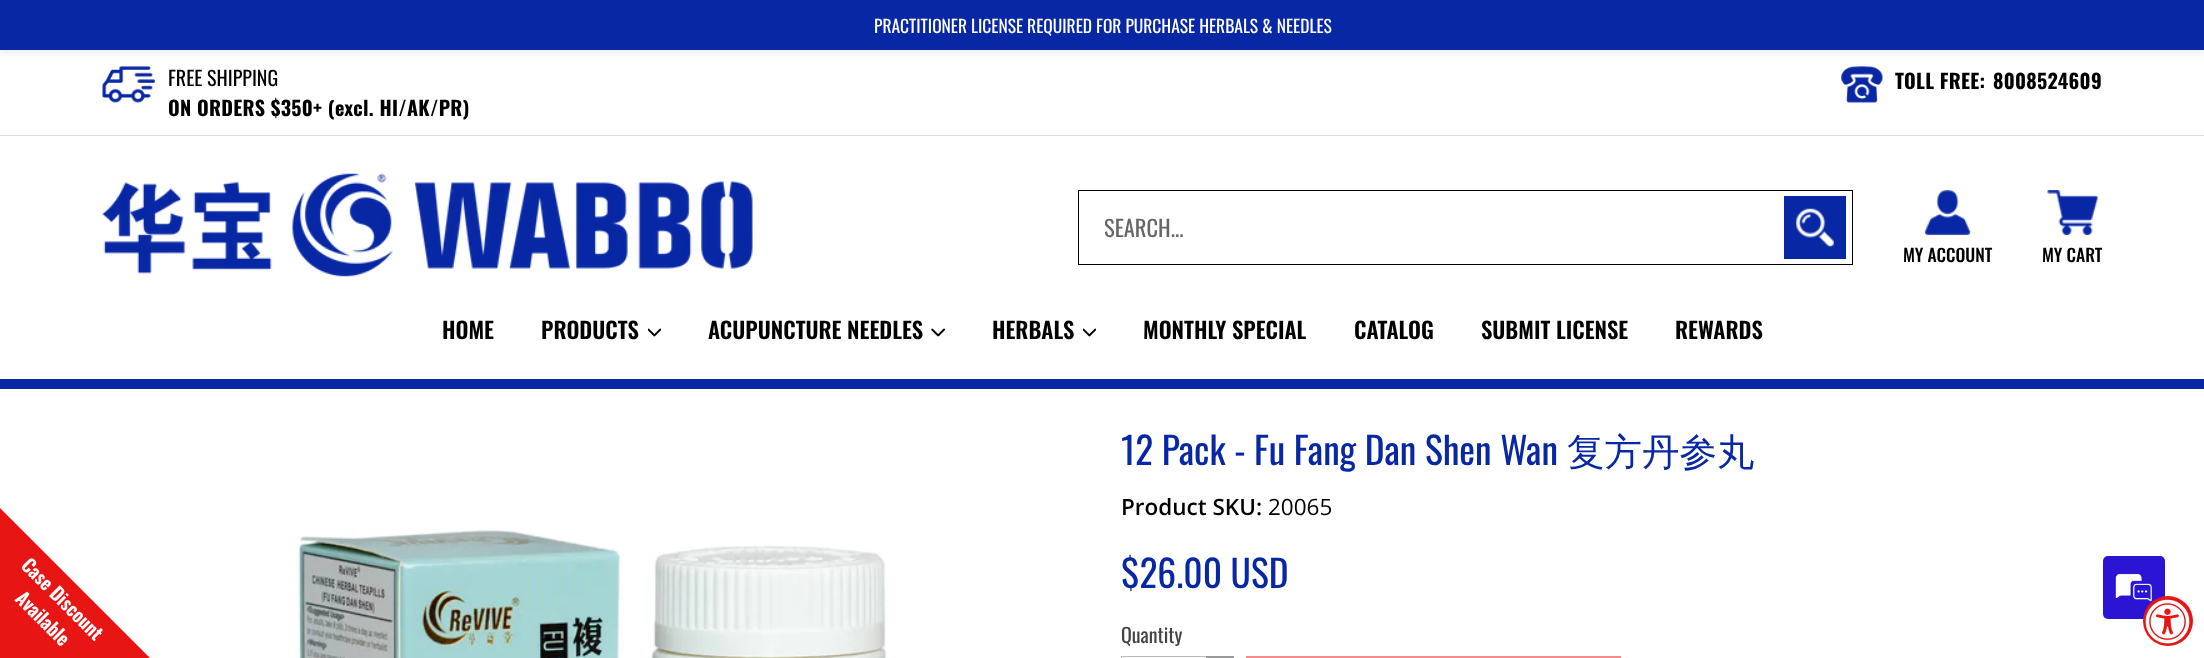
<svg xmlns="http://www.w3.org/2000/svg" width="2204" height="658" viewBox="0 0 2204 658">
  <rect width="100%" height="100%" fill="rgb(255,255,255)"/>
  <image x="102" y="66" width="53" height="37" href="pic1.png"/>
  <image x="1841" y="66" width="42" height="37" href="pic2.png"/>
  <rect x="-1" y="-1" width="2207" height="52" fill="rgba(0,0,0,0.11)" filter="blur(5.5px)"/>
  <rect x="0" y="0" width="2204" height="50" fill="rgb(8,39,164)"/>
  <text x="874" y="33" font-family="Oswald" font-size="17.5" fill="rgb(255,255,255)">PRACTITIONER LICENSE REQUIRED FOR PURCHASE HERBALS &amp; NEEDLES</text>
  <rect x="0" y="379" width="2204" height="10" fill="rgb(8,39,164)"/>
  <rect x="0" y="135" width="2204" height="1" fill="rgb(221,221,221)"/>
  <text x="168" y="86" font-family="Oswald" font-size="20" fill="rgb(0,0,0)">FREE SHIPPING</text>
  <g font-family="Oswald" font-size="20" font-weight="bold" letter-spacing="0.3" fill="rgb(0,0,0)">
    <text x="168" y="116">ON ORDERS $350+ (excl. HI/AK/PR)</text>
    <text x="1895" y="89">TOLL FREE:</text>
    <text x="1993" y="89">8008524609</text>
  </g>
  <image x="102" y="173" width="651" height="104" href="pic3.png"/>
  <rect x="1078.5" y="190.5" width="774" height="74" fill="none" stroke="rgb(0,0,0)"/>
  <text x="1104" y="237" font-family="Oswald" font-size="22.5" fill="rgb(102,102,102)">SEARCH...</text>
  <rect x="1784" y="196" width="62" height="63" fill="rgb(8,39,164)"/>
  <image x="1796" y="208" width="38" height="39" href="pic4.png"/>
  <image x="1924" y="190" width="47" height="45" href="pic5.png"/>
  <text x="1903" y="262" font-family="Oswald" font-size="17.5" font-weight="500" fill="rgb(0,0,0)">MY ACCOUNT</text>
  <image x="2047" y="190" width="51" height="45" href="pic6.png"/>
  <text x="2042" y="262" font-family="Oswald" font-size="17.5" font-weight="500" fill="rgb(0,0,0)">MY CART</text>
  <g font-family="Oswald" font-size="22.5" font-weight="600" fill="rgb(0,0,0)">
    <text x="442" y="339">HOME</text>
    <text x="541" y="339">PRODUCTS</text>
  </g>
  <image x="648" y="328" width="13" height="9" href="pic7.png"/>
  <text x="708" y="339" font-family="Oswald" font-size="22.5" font-weight="600" fill="rgb(0,0,0)">ACUPUNCTURE NEEDLES</text>
  <image x="931" y="328" width="14" height="9" href="pic8.png"/>
  <text x="992" y="339" font-family="Oswald" font-size="22.5" font-weight="600" fill="rgb(0,0,0)">HERBALS</text>
  <image x="1083" y="328" width="13" height="9" href="pic7.png"/>
  <g font-family="Oswald" font-size="22.5" font-weight="600" fill="rgb(0,0,0)">
    <text x="1143" y="339">MONTHLY SPECIAL</text>
    <text x="1354" y="339">CATALOG</text>
    <text x="1481" y="339">SUBMIT LICENSE</text>
    <text x="1675" y="339">REWARDS</text>
  </g>
  <path d="M150 658H-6V502Z" fill="rgb(232,21,21)"/>
  <g font-family="Oswald" font-size="18.75" font-weight="600" fill="rgb(255,255,255)">
    <text x="20" y="567" transform="rotate(45 20 567)">Case Discount</text>
    <text x="14" y="600" transform="rotate(45 14 600)">Available</text>
  </g>
  <image x="293" y="528" width="594" height="130" href="pic9.png"/>
  <text x="1121" y="465" font-family="Oswald" font-size="37.5" fill="rgb(8,39,164)">12 Pack - Fu Fang Dan Shen Wan</text>
  <text x="1567" y="465" font-family="WenQuanYi Zen Hei" font-size="37.5" font-weight="500" fill="rgb(8,39,164)">复方丹参丸</text>
  <text x="1121" y="515" font-family="Open Sans" font-size="22.5" font-weight="600" fill="rgb(0,0,0)">Product SKU:</text>
  <text x="1268" y="515" font-family="Open Sans" font-size="22.5" fill="rgb(0,0,0)">20065</text>
  <text x="1121" y="588" font-family="Oswald" font-size="37.5" fill="rgb(8,39,164)">$26.00 USD</text>
  <text x="1121" y="643" font-family="Oswald" font-size="20" fill="rgb(68,68,68)">Quantity</text>
  <rect x="1121.5" y="656.5" width="112" height="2" fill="none" stroke="rgb(184,184,184)"/>
  <rect x="1206" y="656" width="28" height="2" fill="rgb(153,153,153)"/>
  <rect x="1246" y="656" width="375" height="2" fill="rgb(244,138,138)"/>
  <rect x="2103" y="556" width="62" height="63" rx="5" fill="rgb(43,20,212)"/>
  <image x="2115" y="573" width="37" height="29" href="pic10.png"/>
  <circle cx="2168" cy="621" r="25" fill="rgb(232,21,21)"/>
  <image x="2145" y="599" width="45" height="45" href="pic11.png"/>
</svg>
